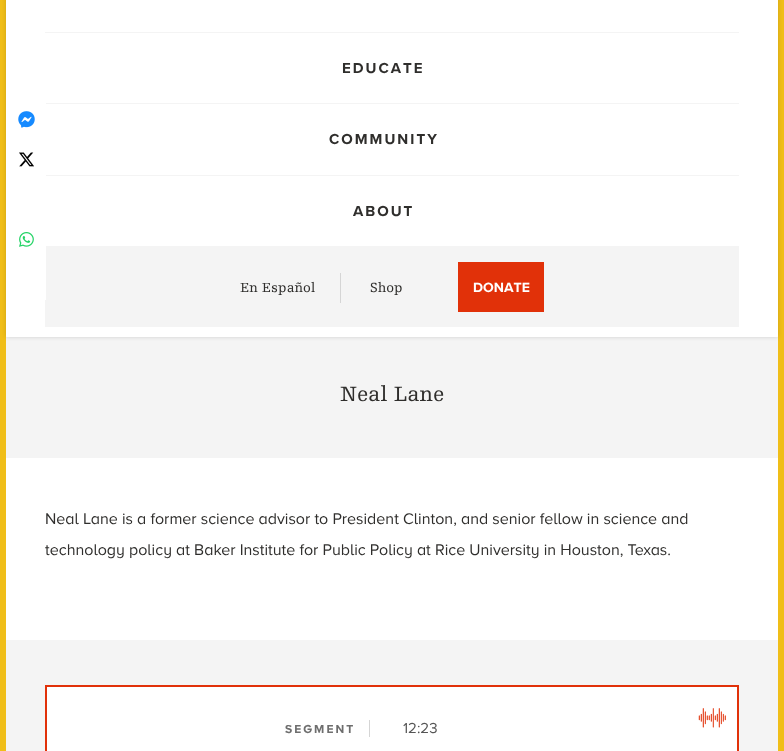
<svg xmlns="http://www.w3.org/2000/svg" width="784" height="751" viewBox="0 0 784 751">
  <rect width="100%" height="100%" fill="rgb(255,255,255)"/>
  <rect x="3" y="-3" width="778" height="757" fill="none" stroke="rgb(240,190,24)" stroke-width="6"/>
  <rect x="6" y="337" width="772" height="121" fill="rgb(244,244,244)"/>
  <rect x="6" y="-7" width="772" height="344" rx="1" fill="rgba(0,0,0,0.15)" filter="blur(2px)"/>
  <rect x="6" y="-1" width="772" height="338" rx="1" fill="rgb(255,255,255)"/>
  <rect x="45" y="246" width="694" height="81" fill="rgb(244,244,244)"/>
  <rect x="45" y="32" width="694" height="1" fill="rgb(244,244,244)"/>
  <rect x="45" y="103" width="694" height="1" fill="rgb(244,244,244)"/>
  <text x="342" y="73" font-family="'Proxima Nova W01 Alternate'" font-size="15" font-weight="bold" letter-spacing="2" fill="rgb(47,46,44)">EDUCATE</text>
  <rect x="45" y="175" width="694" height="1" fill="rgb(244,244,244)"/>
  <g font-family="'Proxima Nova W01 Alternate'" font-size="15" font-weight="bold" letter-spacing="2" fill="rgb(47,46,44)">
    <text x="329" y="144">COMMUNITY</text>
    <text x="353" y="216">ABOUT</text>
  </g>
  <rect x="340" y="273" width="1" height="30" fill="rgb(213,213,213)"/>
  <g font-family="'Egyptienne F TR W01'" font-size="14" fill="rgb(47,46,44)">
    <text x="240" y="292">En Español</text>
    <text x="370" y="292">Shop</text>
  </g>
  <rect x="458" y="262" width="86" height="50" fill="rgb(225,49,9)"/>
  <text x="473" y="292" font-family="'Proxima Nova W01 Alternate'" font-size="14" font-weight="bold" fill="rgb(255,255,255)">DONATE</text>
  <rect x="45" y="103" width="1" height="1" fill="rgb(255,255,255)"/>
  <image x="18" y="111" width="17" height="17" href="pic1.png"/>
  <rect x="45" y="175" width="1" height="1" fill="rgb(255,255,255)"/>
  <image x="19" y="152" width="15" height="15" href="pic2.png"/>
  <rect x="45" y="246" width="1" height="54" fill="rgb(255,255,255)"/>
  <image x="19" y="232" width="15" height="15" href="pic3.png"/>
  <text x="340" y="401" font-family="'Egyptienne F TR W01'" font-size="22" fill="rgb(47,46,44)">Neal Lane</text>
  <g font-family="'Proxima Nova W01 Alternate'" font-size="16" fill="rgb(47,46,44)">
    <text>
      <tspan x="45" y="524">Neal Lane is a former science advisor to President Clinton, and senior fellow in science and</tspan>
      <tspan x="45" y="555">technology policy at Baker Institute for Public Policy at Rice University in Houston, Texas.</tspan>
    </text>
  </g>
  <rect x="6" y="640" width="772" height="111" fill="rgb(244,244,244)"/>
  <rect x="46" y="686" width="692" height="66" fill="rgb(255,255,255)" stroke="rgb(225,49,9)" stroke-width="2"/>
  <text x="285" y="733" font-family="'Proxima Nova W01 Alternate'" font-size="12" font-weight="bold" letter-spacing="2" fill="rgb(110,110,110)">SEGMENT</text>
  <rect x="369" y="720" width="1" height="17" fill="rgb(213,213,213)"/>
  <text x="403" y="733" font-family="'Proxima Nova W01 Alternate'" font-size="15" fill="rgb(85,85,85)">12:23</text>
  <image x="698" y="708" width="28" height="20" href="pic4.png"/>
</svg>
